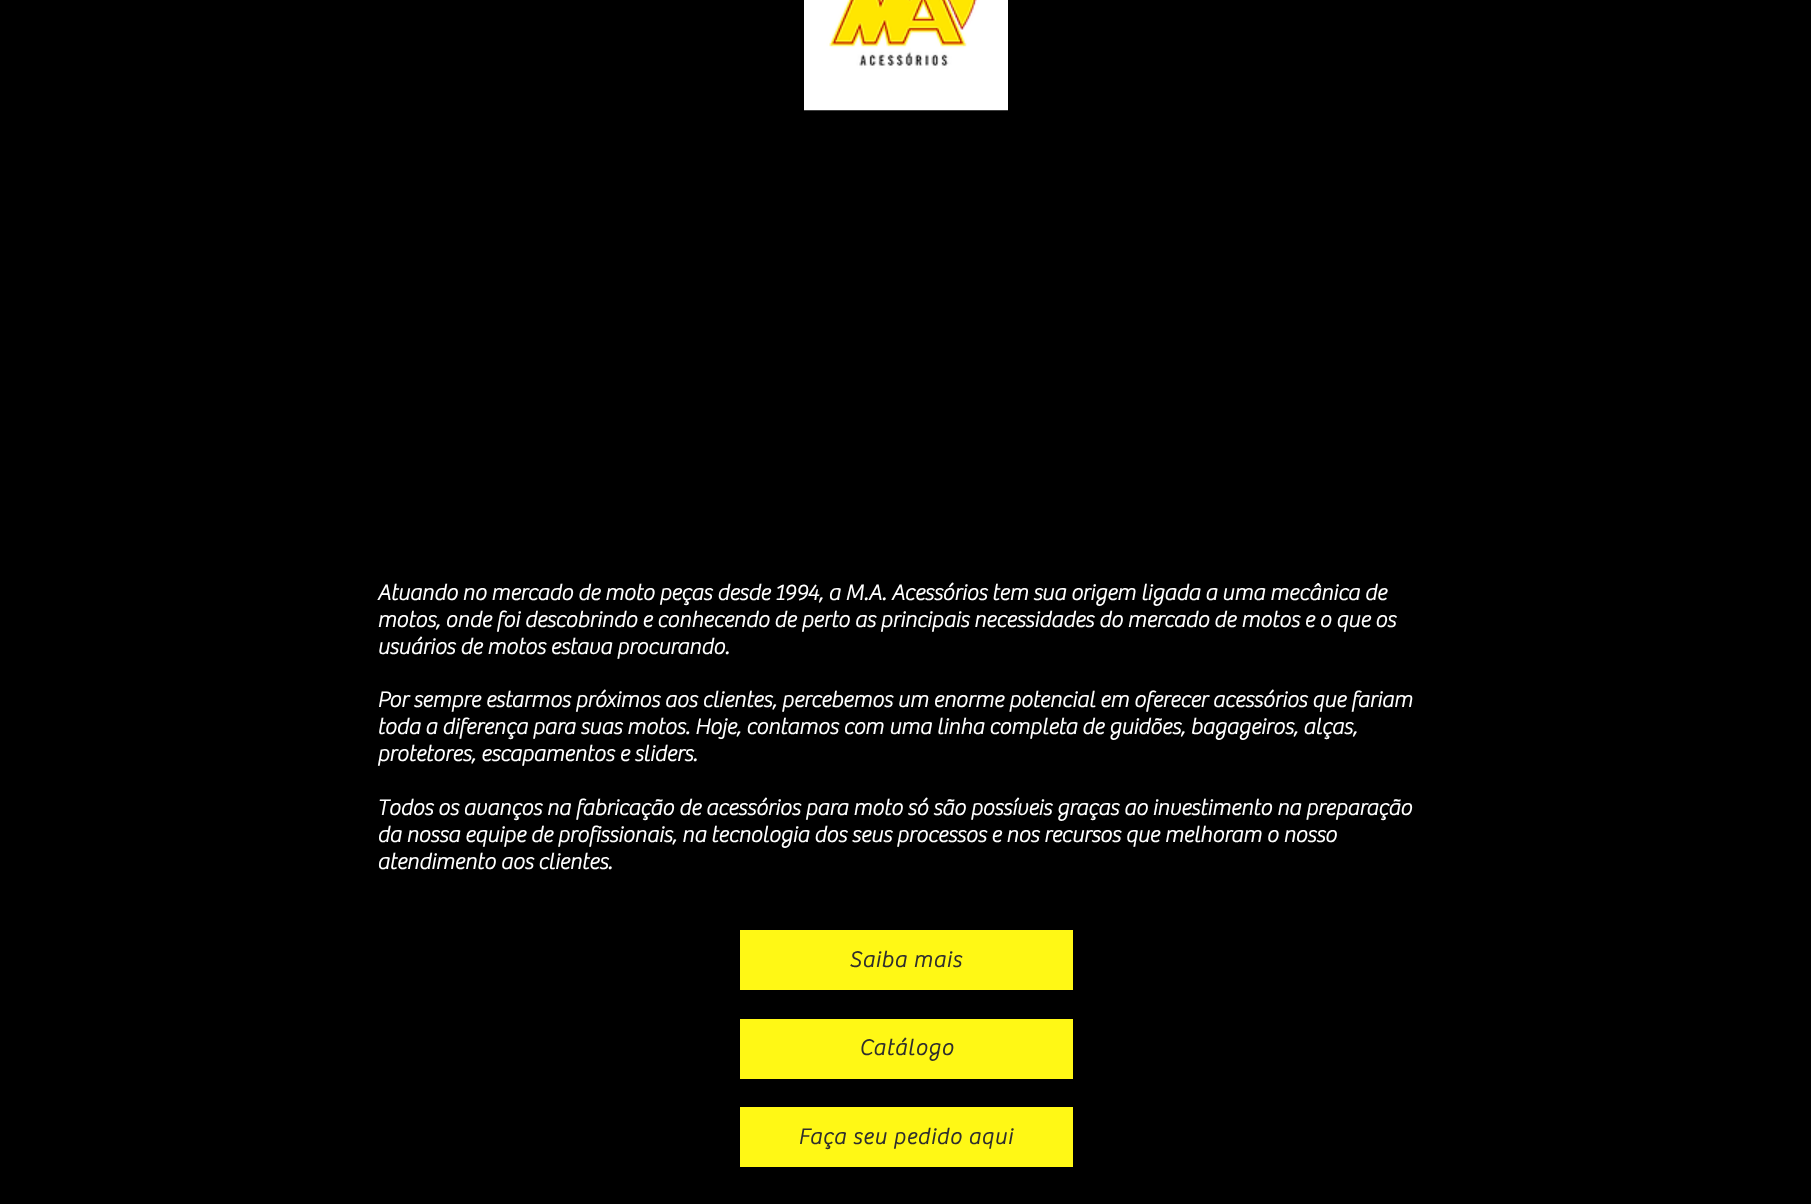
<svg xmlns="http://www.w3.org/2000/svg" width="1811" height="1204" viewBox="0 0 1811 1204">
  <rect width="100%" height="100%" fill="rgb(0,0,0)"/>
  <image x="804" y="0" width="204" height="111" href="pic1.png"/>
  <g font-family="'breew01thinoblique'" font-size="22.5" font-weight="bold" fill="rgb(255,255,255)">
    <text>
      <tspan x="377" y="600">Atuando no mercado de moto peças desde 1994, a M.A. Acessórios tem sua origem ligada a uma mecânica de</tspan>
      <tspan x="377" y="627">motos, onde foi descobrindo e conhecendo de perto as principais necessidades do mercado de motos e o que os</tspan>
      <tspan x="377" y="654">usuários de motos estava procurando.</tspan>
    </text>
    <text>
      <tspan x="377" y="707">Por sempre estarmos próximos aos clientes, percebemos um enorme potencial em oferecer acessórios que fariam</tspan>
      <tspan x="377" y="734">toda a diferença para suas motos. Hoje, contamos com uma linha completa de guidões, bagageiros, alças,</tspan>
      <tspan x="377" y="761">protetores, escapamentos e sliders.</tspan>
    </text>
    <text>
      <tspan x="377" y="815">Todos os avanços na fabricação de acessórios para moto só são possíveis graças ao investimento na preparação</tspan>
      <tspan x="377" y="842">da nossa equipe de profissionais, na tecnologia dos seus processos e nos recursos que melhoram o nosso</tspan>
      <tspan x="377" y="869">atendimento aos clientes.</tspan>
    </text>
  </g>
  <rect x="740" y="930" width="333" height="60" fill="rgb(255,248,21)"/>
  <text x="849" y="967" font-family="'breew01thinoblique'" font-size="22.5" font-weight="bold" letter-spacing="1.1" fill="rgb(47,46,46)">Saiba mais</text>
  <rect x="740" y="1019" width="333" height="60" fill="rgb(255,248,21)"/>
  <text x="859" y="1055" font-family="'breew01thinoblique'" font-size="22.5" font-weight="bold" letter-spacing="1.1" fill="rgb(47,46,46)">Catálogo</text>
  <rect x="740" y="1107" width="333" height="60" fill="rgb(255,248,21)"/>
  <text x="798" y="1144" font-family="'breew01thinoblique'" font-size="22.5" font-weight="bold" letter-spacing="1.1" fill="rgb(47,46,46)">Faça seu pedido aqui</text>
</svg>
